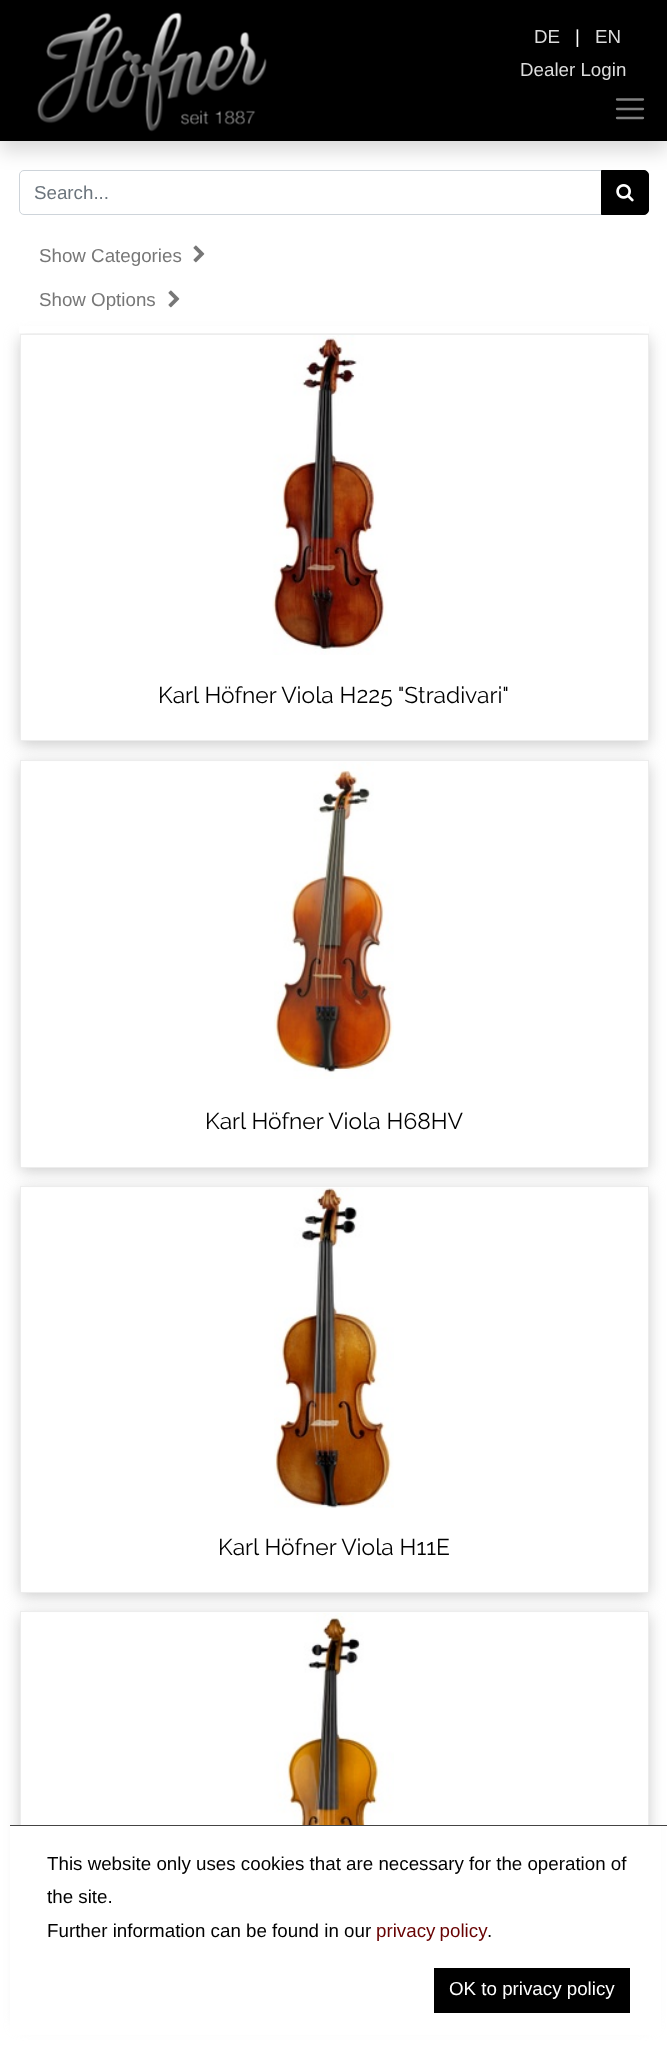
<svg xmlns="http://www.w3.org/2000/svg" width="667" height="2049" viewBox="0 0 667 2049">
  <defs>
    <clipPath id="clip1"><path d="M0 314H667V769H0ZM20 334H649V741H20Z" clip-rule="evenodd"/></clipPath>
    <clipPath id="clip2"><path d="M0 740H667V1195H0ZM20 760H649V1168H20Z" clip-rule="evenodd"/></clipPath>
    <clipPath id="clip3"><path d="M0 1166H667V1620H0ZM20 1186H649V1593H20Z" clip-rule="evenodd"/></clipPath>
    <clipPath id="clip4"><path d="M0 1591H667V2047H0ZM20 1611H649V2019H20Z" clip-rule="evenodd"/></clipPath>
  </defs>
  <rect width="100%" height="100%" fill="rgb(255,255,255)"/>
  <rect x="0" y="0" width="667" height="85" fill="rgb(0,0,0)"/>
  <path d="M24 170.5H602.5V214.5H24C21.5 214.5 19.5 212.5 19.5 210V175C19.5 172.5 21.5 170.5 24 170.5Z" fill="none" stroke="rgb(206,212,218)"/>
  <path d="M601.5 170.5H644C646.5 170.5 648.5 172.5 648.5 175V210C648.5 212.5 646.5 214.5 644 214.5H601.5Z" fill="rgb(0,0,0)" stroke="rgb(0,0,0)"/>
  <rect x="0" y="95" width="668" height="56" fill="rgba(0,0,0,0.15)" filter="blur(9.5px)"/>
  <rect x="0" y="85" width="667" height="56" fill="rgb(0,0,0)"/>
  <image x="37" y="12" width="230" height="120" href="pic1.png"/>
  <path d="M617 99.5H643M617 109H643M617 118H643" fill="none" stroke="rgb(128,128,128)" stroke-width="2.3" stroke-linecap="round"/>
  <text x="534" y="43" font-family="Liberation Sans" font-size="18.75" fill="rgb(221,221,221)">DE</text>
  <text x="575" y="43" font-family="Liberation Sans" font-size="18.75" fill="rgb(255,255,255)">|</text>
  <g font-family="Liberation Sans" font-size="18.75" fill="rgb(221,221,221)">
    <text x="595" y="43">EN</text>
    <text x="520" y="76">Dealer Login</text>
  </g>
  <text x="34" y="199" font-family="Liberation Sans" font-size="18.75" fill="rgb(108,117,125)">Search...</text>
  <image x="616" y="184" width="18" height="18" href="pic2.png"/>
  <g clip-path="url(#clip1)">
    <rect x="20" y="338" width="629" height="407" fill="rgb(204,204,204)" filter="blur(7.5px)"/>
  </g>
  <rect x="19" y="326" width="630" height="7" fill="rgb(255,255,255)"/>
  <text x="39" y="262" font-family="Liberation Sans" font-size="18.75" fill="rgb(119,119,119)">Show Categories</text>
  <image x="193" y="245" width="12" height="18" href="pic3.png"/>
  <text x="39" y="306" font-family="Liberation Sans" font-size="18.75" fill="rgb(119,119,119)">Show Options</text>
  <image x="168" y="290" width="12" height="18" href="pic3.png"/>
  <rect x="20.5" y="334.5" width="628" height="406" fill="none" stroke="rgb(237,237,237)"/>
  <image x="272" y="335" width="116" height="320" href="pic4.png"/>
  <text x="158" y="703" font-family="Raleway" font-size="22.8" fill="rgb(0,0,0)">Karl Höfner Viola H225 "Stradivari"</text>
  <g clip-path="url(#clip2)">
    <rect x="20" y="764" width="629" height="407" fill="rgb(204,204,204)" filter="blur(7.5px)"/>
  </g>
  <rect x="20.5" y="760.5" width="628" height="407" fill="none" stroke="rgb(237,237,237)"/>
  <image x="274" y="762" width="120" height="317" href="pic5.png"/>
  <text x="205" y="1129" font-family="Raleway" font-size="22.8" fill="rgb(0,0,0)">Karl Höfner Viola H68HV</text>
  <g clip-path="url(#clip3)">
    <rect x="20" y="1190" width="629" height="406" fill="rgb(204,204,204)" filter="blur(7.5px)"/>
  </g>
  <rect x="20.5" y="1186.5" width="628" height="406" fill="none" stroke="rgb(237,237,237)"/>
  <image x="274" y="1188" width="120" height="320" href="pic6.png"/>
  <text x="218" y="1555" font-family="Raleway" font-size="22.8" fill="rgb(0,0,0)">Karl Höfner Viola H11E</text>
  <g clip-path="url(#clip4)">
    <rect x="20" y="1615" width="629" height="408" fill="rgb(204,204,204)" filter="blur(7.5px)"/>
  </g>
  <rect x="20.5" y="1611.5" width="628" height="407" fill="none" stroke="rgb(237,237,237)"/>
  <image x="274" y="1613" width="120" height="212" href="pic7.png"/>
  <rect x="10" y="1826" width="651" height="209" fill="rgb(255,255,255)"/>
  <rect x="10" y="1825" width="657" height="1" fill="rgb(68,68,68)"/>
  <g font-family="Liberation Sans" font-size="18.75" fill="rgb(0,0,0)">
    <text>
      <tspan x="47" y="1870">This website only uses cookies that are necessary for the operation of</tspan>
      <tspan x="47" y="1903">the site.</tspan>
      <tspan x="47" y="1937">Further information can be found in our</tspan>
    </text>
  </g>
  <text x="376" y="1937" word-spacing="-1" font-family="Liberation Sans" font-size="18.75" fill="rgb(104,2,2)">privacy policy</text>
  <text x="487" y="1937" font-family="Liberation Sans" font-size="18.75" fill="rgb(0,0,0)">.</text>
  <rect x="434" y="1968" width="196" height="45" fill="rgb(0,0,0)"/>
  <text x="449" y="1995" font-family="Liberation Sans" font-size="18.75" fill="rgb(255,255,255)">OK to privacy policy</text>
</svg>
